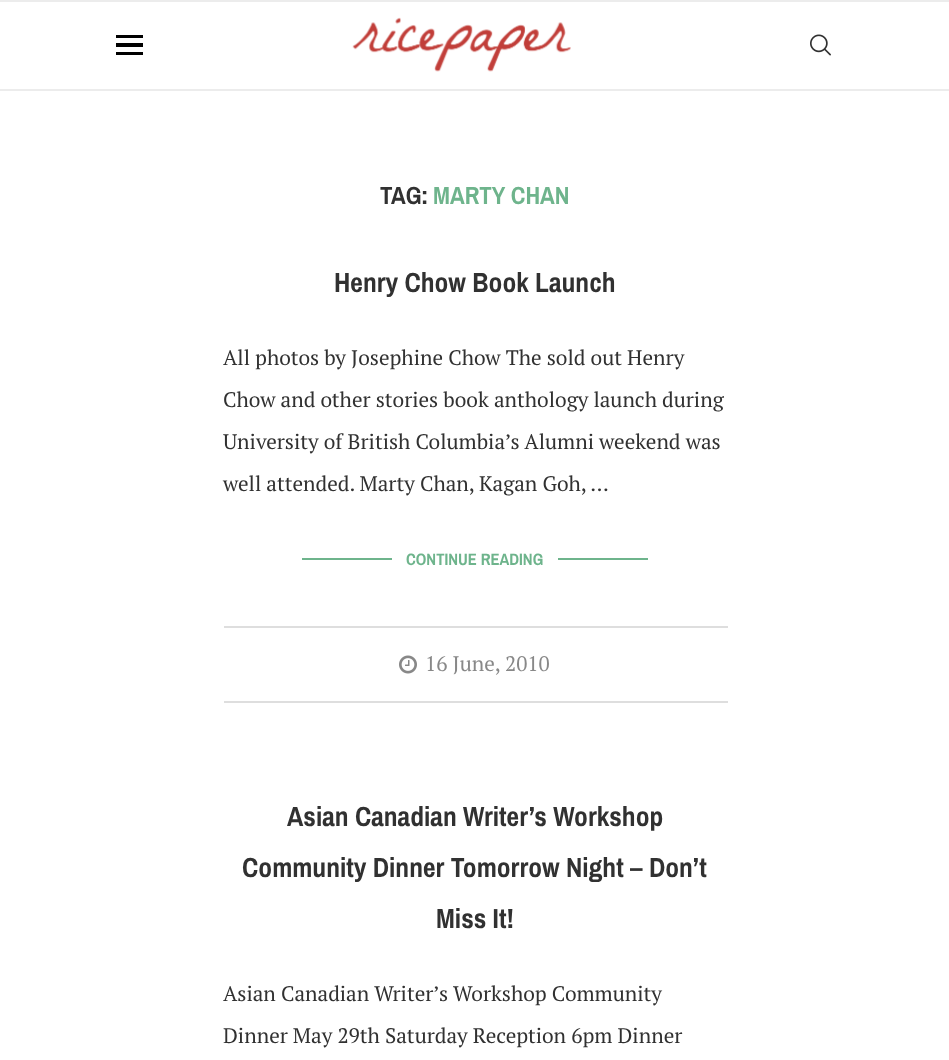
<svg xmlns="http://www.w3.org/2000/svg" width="949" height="1060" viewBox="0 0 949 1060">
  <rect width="100%" height="100%" fill="rgb(255,255,255)"/>
  <rect x="0" y="0" width="949" height="2" fill="rgb(236,236,236)"/>
  <rect x="0" y="89" width="949" height="2" fill="rgb(236,236,236)"/>
  <rect x="116" y="35" width="27" height="3" fill="rgb(0,0,0)"/>
  <rect x="116" y="43" width="27" height="4" fill="rgb(0,0,0)"/>
  <rect x="116" y="52" width="27" height="3" fill="rgb(0,0,0)"/>
  <image x="352" y="17" width="219" height="55" href="pic1.png"/>
  <image x="810" y="34" width="21" height="22" href="pic2.png"/>
  <text x="380" y="204" font-family="Pragati Narrow" font-size="27" font-weight="bold" fill="rgb(49,49,49)">TAG:</text>
  <text x="433" y="204" font-family="Pragati Narrow" font-size="27" font-weight="bold" fill="rgb(110,180,140)">MARTY CHAN</text>
  <text x="334" y="292" font-family="Pragati Narrow" font-size="30" font-weight="bold" fill="rgb(49,49,49)">Henry Chow Book Launch</text>
  <g font-family="PT Serif" font-size="21" fill="rgb(49,49,49)">
    <text x="223" y="365">All photos by Josephine Chow The sold out Henry</text>
    <text x="223" y="407">Chow and other stories book anthology launch during</text>
    <text x="223" y="449">University of British Columbia’s Alumni weekend was</text>
    <text x="223" y="491">well attended. Marty Chan, Kagan Goh, …</text>
  </g>
  <rect x="302" y="558" width="90" height="2" fill="rgb(110,180,140)"/>
  <text x="406" y="565" font-family="Pragati Narrow" font-size="18" font-weight="bold" fill="rgb(110,180,140)">CONTINUE READING</text>
  <rect x="558" y="558" width="90" height="2" fill="rgb(110,180,140)"/>
  <rect x="224" y="626" width="504" height="2" fill="rgb(222,222,222)"/>
  <rect x="224" y="701" width="504" height="2" fill="rgb(222,222,222)"/>
  <image x="399" y="655" width="18" height="19" href="pic3.png"/>
  <text x="425" y="671" font-family="PT Serif" font-size="21" fill="rgb(136,136,136)">16 June, 2010</text>
  <g font-family="Pragati Narrow" font-size="30" font-weight="bold" fill="rgb(49,49,49)">
    <text x="287" y="826">Asian Canadian Writer’s Workshop</text>
    <text x="242" y="877">Community Dinner Tomorrow Night – Don’t</text>
    <text x="436" y="928">Miss It!</text>
  </g>
  <g font-family="PT Serif" font-size="21" fill="rgb(49,49,49)">
    <text x="223" y="1001">Asian Canadian Writer’s Workshop Community</text>
    <text x="223" y="1043">Dinner May 29th Saturday Reception 6pm Dinner</text>
  </g>
</svg>
